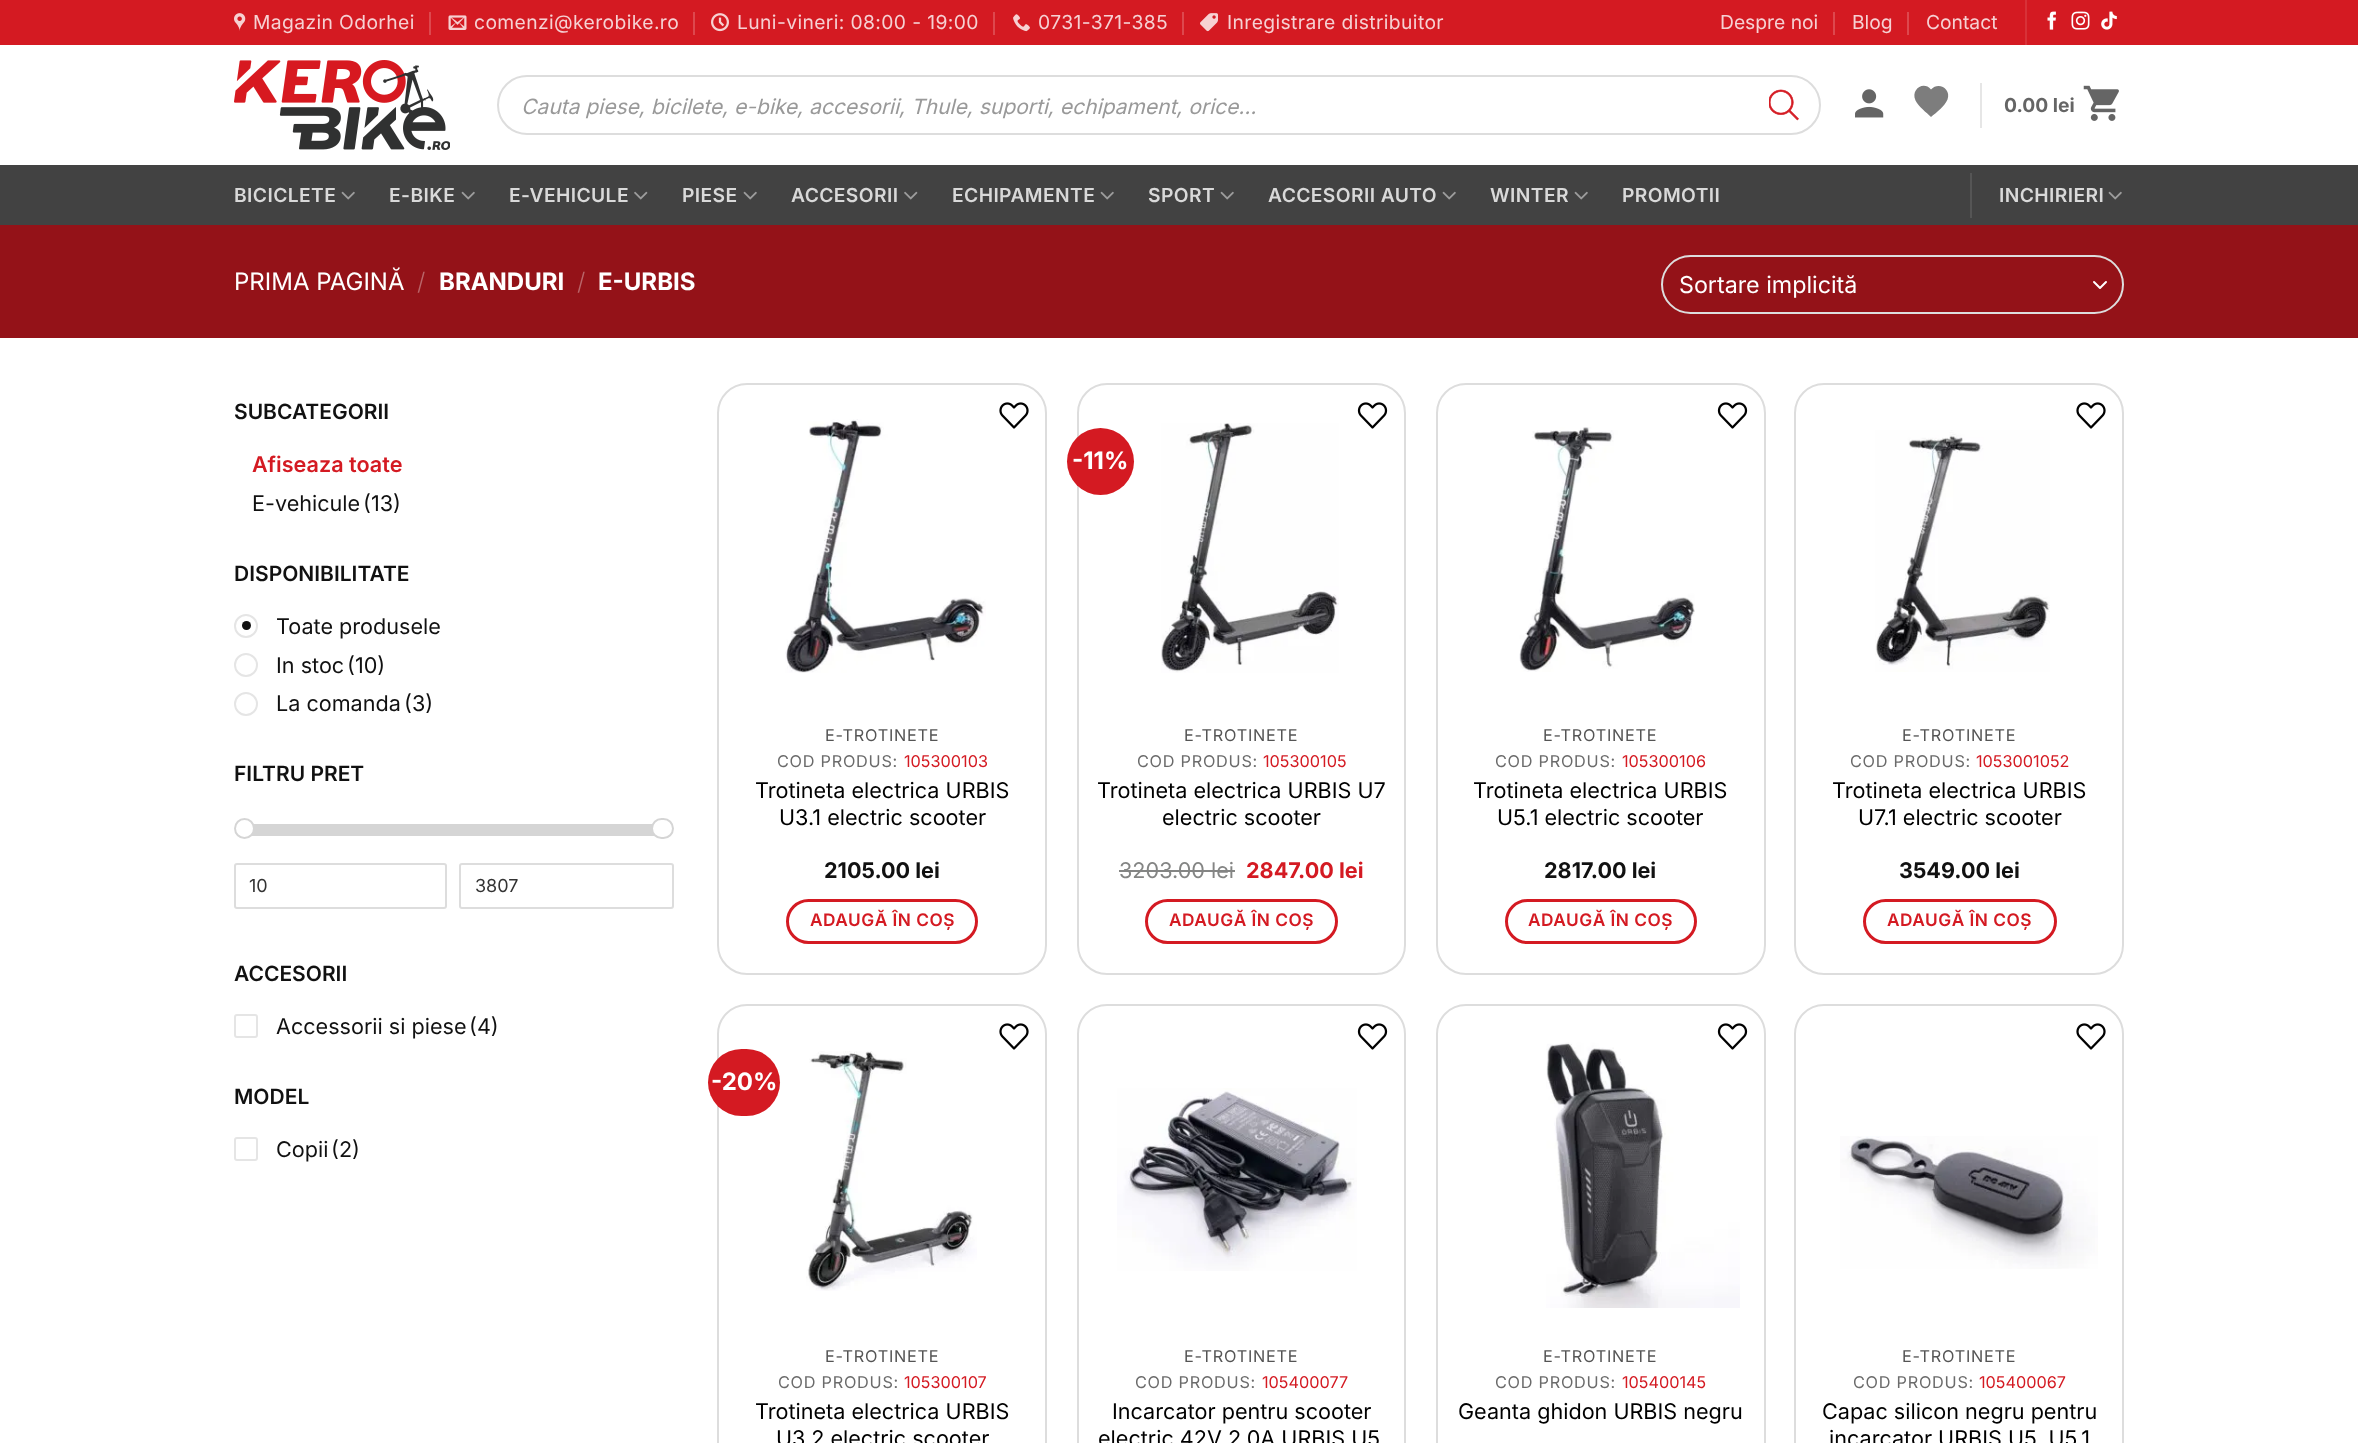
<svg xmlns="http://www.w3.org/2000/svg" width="2358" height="1443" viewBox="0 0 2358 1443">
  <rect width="100%" height="100%" fill="rgb(255,255,255)"/>
  <rect x="0" y="0" width="2358" height="45" fill="rgb(212,26,34)"/>
  <image x="234" y="13" width="12" height="18" href="pic1.png"/>
  <text x="253" y="29" font-family="Inter" font-size="19.25" letter-spacing="0.4" fill="rgb(246,209,211)">Magazin Odorhei</text>
  <rect x="429" y="12" width="2" height="23" fill="rgb(221,72,78)"/>
  <image x="448" y="15" width="19" height="15" href="pic2.png"/>
  <text x="474" y="29" font-family="Inter" font-size="19.25" letter-spacing="0.4" fill="rgb(246,209,211)">comenzi@kerobike.ro</text>
  <rect x="693" y="12" width="2" height="23" fill="rgb(221,72,78)"/>
  <image x="711" y="13" width="18" height="19" href="pic3.png"/>
  <text x="737" y="29" font-family="Inter" font-size="19.25" letter-spacing="0.4" fill="rgb(246,209,211)">Luni-vineri: 08:00 - 19:00</text>
  <rect x="993" y="12" width="2" height="23" fill="rgb(221,72,78)"/>
  <image x="1013" y="14" width="17" height="18" href="pic4.png"/>
  <text x="1038" y="29" font-family="Inter" font-size="19.25" letter-spacing="0.4" fill="rgb(246,209,211)">0731-371-385</text>
  <rect x="1182" y="12" width="2" height="23" fill="rgb(221,72,78)"/>
  <image x="1200" y="13" width="18" height="19" href="pic5.png"/>
  <text x="1227" y="29" font-family="Inter" font-size="19.25" letter-spacing="0.4" fill="rgb(246,209,211)">Inregistrare distribuitor</text>
  <text x="1720" y="29" font-family="Inter" font-size="19.25" fill="rgb(246,209,211)">Despre noi</text>
  <rect x="1833" y="12" width="2" height="23" fill="rgb(221,72,78)"/>
  <text x="1852" y="29" font-family="Inter" font-size="19.25" fill="rgb(246,209,211)">Blog</text>
  <rect x="1907" y="12" width="2" height="23" fill="rgb(221,72,78)"/>
  <text x="1926" y="29" font-family="Inter" font-size="19.25" fill="rgb(246,209,211)">Contact</text>
  <rect x="2025" y="0" width="2" height="45" fill="rgb(216,49,56)"/>
  <image x="2047" y="11" width="9" height="19" href="pic6.png"/>
  <image x="2071" y="11" width="19" height="19" href="pic7.png"/>
  <image x="2101" y="11" width="16" height="19" href="pic8.png"/>
  <image x="234" y="60" width="216" height="90" href="pic9.png"/>
  <rect x="498" y="76" width="1322" height="58" rx="29" fill="none" stroke="rgb(221,221,221)" stroke-width="2"/>
  <text x="521" y="114" font-family="Inter" font-size="21" font-style="italic" fill="rgb(153,153,153)">Cauta piese, bicilete, e-bike, accesorii, Thule, suporti, echipament, orice...</text>
  <image x="1769" y="89" width="30" height="32" href="pic10.png"/>
  <image x="1855" y="89" width="29" height="29" href="pic11.png"/>
  <path d="M1931 117C1926.5 112.5 1918.5 106.5 1915.5 100.5C1910.5 89.5 1923.5 80.5 1931 89.5C1938.5 81 1951.5 89 1947.5 99.5C1944.5 106.5 1937 112 1931 117Z" fill="rgb(125,125,125)"/>
  <rect x="1980" y="83" width="2" height="45" fill="rgb(230,230,230)"/>
  <text x="2004" y="112" font-family="Inter" font-size="19.25" font-weight="bold" fill="rgb(101,101,101)">0.00 lei</text>
  <image x="2083" y="85" width="36" height="36" href="pic12.png"/>
  <rect x="0" y="165" width="2358" height="60" fill="rgb(66,66,66)"/>
  <text x="234" y="202" font-family="Inter" font-size="19.25" font-weight="600" letter-spacing="0.4" fill="rgb(217,217,217)">BICICLETE</text>
  <image x="341" y="191" width="14" height="9" href="pic13.png"/>
  <text x="389" y="202" font-family="Inter" font-size="19.25" font-weight="600" letter-spacing="0.4" fill="rgb(217,217,217)">E-BIKE</text>
  <image x="461" y="191" width="14" height="9" href="pic13.png"/>
  <text x="509" y="202" font-family="Inter" font-size="19.25" font-weight="600" letter-spacing="0.4" fill="rgb(217,217,217)">E-VEHICULE</text>
  <image x="634" y="191" width="14" height="9" href="pic14.png"/>
  <text x="682" y="202" font-family="Inter" font-size="19.25" font-weight="600" letter-spacing="0.4" fill="rgb(217,217,217)">PIESE</text>
  <image x="743" y="191" width="14" height="9" href="pic13.png"/>
  <text x="791" y="202" font-family="Inter" font-size="19.25" font-weight="600" letter-spacing="0.4" fill="rgb(217,217,217)">ACCESORII</text>
  <image x="904" y="191" width="14" height="9" href="pic14.png"/>
  <text x="952" y="202" font-family="Inter" font-size="19.25" font-weight="600" letter-spacing="0.4" fill="rgb(217,217,217)">ECHIPAMENTE</text>
  <image x="1100" y="191" width="14" height="9" href="pic13.png"/>
  <text x="1148" y="202" font-family="Inter" font-size="19.25" font-weight="600" letter-spacing="0.4" fill="rgb(217,217,217)">SPORT</text>
  <image x="1220" y="191" width="14" height="9" href="pic13.png"/>
  <text x="1268" y="202" font-family="Inter" font-size="19.25" font-weight="600" letter-spacing="0.4" fill="rgb(217,217,217)">ACCESORII AUTO</text>
  <image x="1442" y="191" width="14" height="9" href="pic13.png"/>
  <text x="1490" y="202" font-family="Inter" font-size="19.25" font-weight="600" letter-spacing="0.4" fill="rgb(217,217,217)">WINTER</text>
  <image x="1574" y="191" width="14" height="9" href="pic13.png"/>
  <text x="1622" y="202" font-family="Inter" font-size="19.25" font-weight="600" letter-spacing="0.4" fill="rgb(217,217,217)">PROMOTII</text>
  <rect x="1970" y="173" width="2" height="45" fill="rgb(85,85,85)"/>
  <text x="1999" y="202" font-family="Inter" font-size="19.25" font-weight="600" letter-spacing="0.4" fill="rgb(217,217,217)">INCHIRIERI</text>
  <image x="2108" y="191" width="14" height="9" href="pic13.png"/>
  <rect x="0" y="225" width="2358" height="113" fill="rgb(148,18,24)"/>
  <text x="234" y="290" font-family="Inter" font-size="24" fill="rgb(255,255,255)">PRIMA PAGINĂ</text>
  <text x="417" y="290" font-family="Inter" font-size="24" font-weight="300" fill="rgb(185,101,105)">/</text>
  <text x="439" y="290" font-family="Inter" font-size="24" font-weight="bold" fill="rgb(255,255,255)">BRANDURI</text>
  <text x="577" y="290" font-family="Inter" font-size="24" font-weight="300" fill="rgb(185,101,105)">/</text>
  <text x="598" y="290" font-family="Inter" font-size="24" font-weight="bold" fill="rgb(255,255,255)">E-URBIS</text>
  <path d="M2094 282L2100 288L2106 282" fill="none" stroke="rgb(255,255,255)" stroke-width="2" stroke-linecap="round" stroke-linejoin="round"/>
  <rect x="1662" y="256" width="461" height="57" rx="28.5" fill="none" stroke="rgb(221,221,221)" stroke-width="2"/>
  <text x="1679" y="293" font-family="Inter" font-size="23.25" fill="rgb(255,255,255)">Sortare implicită</text>
  <text x="234" y="419" font-family="Inter" font-size="21" font-weight="600" fill="rgb(17,17,17)">SUBCATEGORII</text>
  <text x="252" y="472" font-family="Inter" font-size="21.6" font-weight="600" fill="rgb(212,26,34)">Afiseaza toate</text>
  <g font-family="Inter" font-size="21.6" fill="rgb(17,17,17)">
    <text x="252" y="511">E-vehicule</text>
    <text x="363" y="511">(13)</text>
  </g>
  <text x="234" y="581" font-family="Inter" font-size="21" font-weight="600" fill="rgb(17,17,17)">DISPONIBILITATE</text>
  <circle cx="246" cy="626" r="11" fill="none" stroke="rgb(229,229,229)" stroke-width="2"/>
  <circle cx="246.5" cy="625.5" r="4.5" fill="rgb(17,17,17)"/>
  <text x="276" y="634" font-family="Inter" font-size="21.6" fill="rgb(17,17,17)">Toate produsele</text>
  <circle cx="246" cy="665" r="11" fill="none" stroke="rgb(229,229,229)" stroke-width="2"/>
  <g font-family="Inter" font-size="21.6" fill="rgb(17,17,17)">
    <text x="276" y="673">In stoc</text>
    <text x="347" y="673">(10)</text>
  </g>
  <circle cx="246" cy="704" r="11" fill="none" stroke="rgb(229,229,229)" stroke-width="2"/>
  <g font-family="Inter" font-size="21.6" fill="rgb(17,17,17)">
    <text x="276" y="711">La comanda</text>
    <text x="404" y="711">(3)</text>
  </g>
  <text x="234" y="781" font-family="Inter" font-size="21" font-weight="600" fill="rgb(17,17,17)">FILTRU PRET</text>
  <rect x="251" y="824" width="404" height="12" fill="rgb(213,213,213)"/>
  <circle cx="244.5" cy="828.5" r="9.5" fill="rgb(255,255,255)" stroke="rgb(213,213,213)" stroke-width="2"/>
  <rect x="652" y="819" width="21" height="19" rx="9.5" fill="rgb(255,255,255)" stroke="rgb(213,213,213)" stroke-width="2"/>
  <rect x="235" y="864" width="211" height="44" rx="2" fill="none" stroke="rgb(221,221,221)" stroke-width="2"/>
  <text x="249" y="892" font-family="Inter" font-size="18" fill="rgb(51,51,51)">10</text>
  <rect x="460" y="864" width="213" height="44" rx="2" fill="none" stroke="rgb(221,221,221)" stroke-width="2"/>
  <text x="475" y="892" font-family="Inter" font-size="18" fill="rgb(51,51,51)">3807</text>
  <text x="234" y="981" font-family="Inter" font-size="21" font-weight="600" fill="rgb(17,17,17)">ACCESORII</text>
  <rect x="235" y="1015" width="22" height="22" rx="2" fill="none" stroke="rgb(229,229,229)" stroke-width="2"/>
  <g font-family="Inter" font-size="21.6" fill="rgb(17,17,17)">
    <text x="276" y="1034">Accessorii si piese</text>
    <text x="469" y="1034">(4)</text>
  </g>
  <text x="234" y="1104" font-family="Inter" font-size="21" font-weight="600" fill="rgb(17,17,17)">MODEL</text>
  <rect x="235" y="1138" width="22" height="22" rx="2" fill="none" stroke="rgb(229,229,229)" stroke-width="2"/>
  <g font-family="Inter" font-size="21.6" fill="rgb(17,17,17)">
    <text x="276" y="1157">Copii</text>
    <text x="331" y="1157">(2)</text>
  </g>
  <rect x="718" y="384" width="328" height="590" rx="29" fill="none" stroke="rgb(221,221,221)" stroke-width="2"/>
  <image x="999" y="402" width="30" height="27" href="pic15.png"/>
  <image x="785" y="419" width="201" height="254" href="pic16.png"/>
  <text x="825" y="741" font-family="Inter" font-size="16.25" letter-spacing="0.75" fill="rgb(85,85,85)">E-TROTINETE</text>
  <text x="777" y="767" font-family="Inter" font-size="16.25" letter-spacing="0.75" fill="rgb(107,107,107)">COD PRODUS:</text>
  <text x="904" y="767" font-family="Inter" font-size="16.25" fill="rgb(212,26,34)">105300103</text>
  <g font-family="Inter" font-size="21.6" fill="rgb(0,0,0)">
    <text x="755" y="798">Trotineta electrica URBIS</text>
    <text x="779" y="825">U3.1 electric scooter</text>
  </g>
  <text x="824" y="878" font-family="Inter" font-size="21.6" font-weight="bold" fill="rgb(17,17,17)">2105.00 lei</text>
  <rect x="787.5" y="900.5" width="189" height="42" rx="21" fill="none" stroke="rgb(212,26,34)" stroke-width="3"/>
  <text x="810" y="926" font-family="Inter" font-size="17.25" font-weight="600" letter-spacing="0.5" fill="rgb(212,26,34)">ADAUGĂ ÎN COȘ</text>
  <rect x="1078" y="384" width="327" height="590" rx="29" fill="none" stroke="rgb(221,221,221)" stroke-width="2"/>
  <image x="1357" y="402" width="31" height="27" href="pic17.png"/>
  <circle cx="1100.5" cy="461.5" r="33.5" fill="rgb(212,26,34)"/>
  <text x="1072" y="469" font-family="Inter" font-size="24" font-weight="bold" fill="rgb(255,255,255)">-11%</text>
  <image x="1161" y="423" width="178" height="250" href="pic18.png"/>
  <text x="1184" y="741" font-family="Inter" font-size="16.25" letter-spacing="0.75" fill="rgb(85,85,85)">E-TROTINETE</text>
  <text x="1137" y="767" font-family="Inter" font-size="16.25" letter-spacing="0.75" fill="rgb(107,107,107)">COD PRODUS:</text>
  <text x="1263" y="767" font-family="Inter" font-size="16.25" fill="rgb(212,26,34)">105300105</text>
  <g font-family="Inter" font-size="21.6" fill="rgb(0,0,0)">
    <text x="1097" y="798">Trotineta electrica URBIS U7</text>
    <text x="1162" y="825">electric scooter</text>
  </g>
  <text x="1119" y="878" font-family="Inter" font-size="21.6" fill="rgb(132,133,132)">3203.00 lei</text>
  <rect x="1119" y="870" width="116" height="2" fill="rgb(132,133,132)"/>
  <text x="1246" y="878" font-family="Inter" font-size="21.6" font-weight="bold" fill="rgb(212,26,34)">2847.00 lei</text>
  <rect x="1146.5" y="900.5" width="190" height="42" rx="21" fill="none" stroke="rgb(212,26,34)" stroke-width="3"/>
  <text x="1169" y="926" font-family="Inter" font-size="17.25" font-weight="600" letter-spacing="0.5" fill="rgb(212,26,34)">ADAUGĂ ÎN COȘ</text>
  <rect x="1437" y="384" width="328" height="590" rx="29" fill="none" stroke="rgb(221,221,221)" stroke-width="2"/>
  <image x="1717" y="402" width="31" height="27" href="pic17.png"/>
  <image x="1519" y="427" width="176" height="245" href="pic19.png"/>
  <text x="1543" y="741" font-family="Inter" font-size="16.25" letter-spacing="0.75" fill="rgb(85,85,85)">E-TROTINETE</text>
  <text x="1495" y="767" font-family="Inter" font-size="16.25" letter-spacing="0.75" fill="rgb(107,107,107)">COD PRODUS:</text>
  <text x="1622" y="767" font-family="Inter" font-size="16.25" fill="rgb(212,26,34)">105300106</text>
  <g font-family="Inter" font-size="21.6" fill="rgb(0,0,0)">
    <text x="1473" y="798">Trotineta electrica URBIS</text>
    <text x="1497" y="825">U5.1 electric scooter</text>
  </g>
  <text x="1544" y="878" font-family="Inter" font-size="21.6" font-weight="bold" fill="rgb(17,17,17)">2817.00 lei</text>
  <rect x="1506.5" y="900.5" width="189" height="42" rx="21" fill="none" stroke="rgb(212,26,34)" stroke-width="3"/>
  <text x="1528" y="926" font-family="Inter" font-size="17.25" font-weight="600" letter-spacing="0.5" fill="rgb(212,26,34)">ADAUGĂ ÎN COȘ</text>
  <rect x="1795" y="384" width="328" height="590" rx="29" fill="none" stroke="rgb(221,221,221)" stroke-width="2"/>
  <image x="2076" y="402" width="30" height="27" href="pic15.png"/>
  <image x="1875" y="430" width="175" height="242" href="pic20.png"/>
  <text x="1902" y="741" font-family="Inter" font-size="16.25" letter-spacing="0.75" fill="rgb(85,85,85)">E-TROTINETE</text>
  <text x="1850" y="767" font-family="Inter" font-size="16.25" letter-spacing="0.75" fill="rgb(107,107,107)">COD PRODUS:</text>
  <text x="1976" y="767" font-family="Inter" font-size="16.25" fill="rgb(212,26,34)">1053001052</text>
  <g font-family="Inter" font-size="21.6" fill="rgb(0,0,0)">
    <text x="1832" y="798">Trotineta electrica URBIS</text>
    <text x="1858" y="825">U7.1 electric scooter</text>
  </g>
  <text x="1899" y="878" font-family="Inter" font-size="21.6" font-weight="bold" fill="rgb(17,17,17)">3549.00 lei</text>
  <rect x="1864.5" y="900.5" width="191" height="42" rx="21" fill="none" stroke="rgb(212,26,34)" stroke-width="3"/>
  <text x="1887" y="926" font-family="Inter" font-size="17.25" font-weight="600" letter-spacing="0.5" fill="rgb(212,26,34)">ADAUGĂ ÎN COȘ</text>
  <rect x="718" y="1005" width="328" height="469" rx="29" fill="none" stroke="rgb(221,221,221)" stroke-width="2"/>
  <image x="999" y="1023" width="30" height="27" href="pic15.png"/>
  <rect x="708" y="1049" width="72" height="67" rx="33.5" fill="rgb(212,26,34)"/>
  <text x="711" y="1090" font-family="Inter" font-size="24" font-weight="bold" fill="rgb(255,255,255)">-20%</text>
  <image x="806" y="1051" width="171" height="240" href="pic21.png"/>
  <text x="825" y="1362" font-family="Inter" font-size="16.25" letter-spacing="0.75" fill="rgb(85,85,85)">E-TROTINETE</text>
  <text x="778" y="1388" font-family="Inter" font-size="16.25" letter-spacing="0.75" fill="rgb(107,107,107)">COD PRODUS:</text>
  <text x="904" y="1388" font-family="Inter" font-size="16.25" fill="rgb(212,26,34)">105300107</text>
  <g font-family="Inter" font-size="21.6" fill="rgb(0,0,0)">
    <text x="755" y="1419">Trotineta electrica URBIS</text>
    <text x="776" y="1446">U3.2 electric scooter</text>
  </g>
  <rect x="1078" y="1005" width="327" height="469" rx="29" fill="none" stroke="rgb(221,221,221)" stroke-width="2"/>
  <image x="1357" y="1023" width="31" height="27" href="pic17.png"/>
  <image x="1117" y="1088" width="240" height="183" href="pic22.png"/>
  <text x="1184" y="1362" font-family="Inter" font-size="16.25" letter-spacing="0.75" fill="rgb(85,85,85)">E-TROTINETE</text>
  <text x="1135" y="1388" font-family="Inter" font-size="16.25" letter-spacing="0.75" fill="rgb(107,107,107)">COD PRODUS:</text>
  <text x="1262" y="1388" font-family="Inter" font-size="16.25" fill="rgb(212,26,34)">105400077</text>
  <g font-family="Inter" font-size="21.6" fill="rgb(0,0,0)">
    <text x="1112" y="1419">Incarcator pentru scooter</text>
    <text x="1098" y="1446">electric 42V 2.0A URBIS U5</text>
  </g>
  <rect x="1437" y="1005" width="328" height="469" rx="29" fill="none" stroke="rgb(221,221,221)" stroke-width="2"/>
  <image x="1546" y="1042" width="194" height="266" href="pic23.png"/>
  <image x="1717" y="1023" width="31" height="27" href="pic17.png"/>
  <text x="1543" y="1362" font-family="Inter" font-size="16.25" letter-spacing="0.75" fill="rgb(85,85,85)">E-TROTINETE</text>
  <text x="1495" y="1388" font-family="Inter" font-size="16.25" letter-spacing="0.75" fill="rgb(107,107,107)">COD PRODUS:</text>
  <text x="1622" y="1388" font-family="Inter" font-size="16.25" fill="rgb(212,26,34)">105400145</text>
  <text x="1458" y="1419" font-family="Inter" font-size="21.6" fill="rgb(0,0,0)">Geanta ghidon URBIS negru</text>
  <rect x="1795" y="1005" width="328" height="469" rx="29" fill="none" stroke="rgb(221,221,221)" stroke-width="2"/>
  <image x="2076" y="1023" width="30" height="27" href="pic15.png"/>
  <image x="1840" y="1136" width="258" height="133" href="pic24.png"/>
  <text x="1902" y="1362" font-family="Inter" font-size="16.25" letter-spacing="0.75" fill="rgb(85,85,85)">E-TROTINETE</text>
  <text x="1853" y="1388" font-family="Inter" font-size="16.25" letter-spacing="0.75" fill="rgb(107,107,107)">COD PRODUS:</text>
  <text x="1979" y="1388" font-family="Inter" font-size="16.25" fill="rgb(212,26,34)">105400067</text>
  <g font-family="Inter" font-size="21.6" fill="rgb(0,0,0)">
    <text x="1822" y="1419">Capac silicon negru pentru</text>
    <text x="1829" y="1446">incarcator URBIS U5, U5.1</text>
  </g>
</svg>
